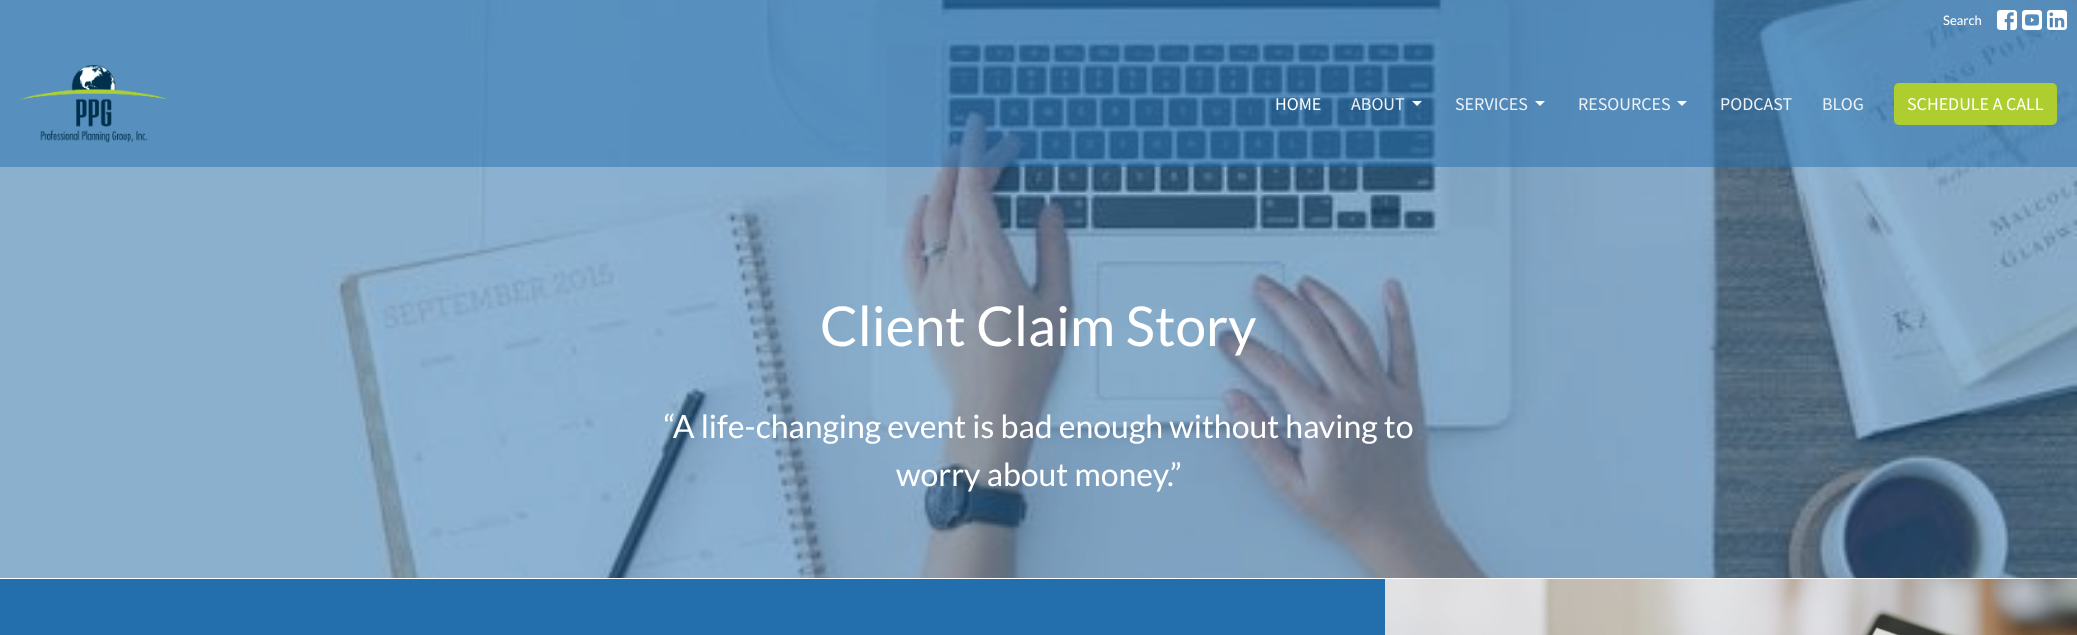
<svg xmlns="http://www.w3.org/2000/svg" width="2077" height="635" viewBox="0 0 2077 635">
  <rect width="100%" height="100%" fill="rgb(255,255,255)"/>
  <image x="0" y="0" width="2077" height="578" href="pic5.png"/>
  <rect x="0" y="0" width="2077" height="40" fill="rgba(35,111,173,0.49)"/>
  <text x="1943" y="25" font-family="Lato" font-size="13" fill="rgb(255,255,255)">Search</text>
  <image x="1997" y="10" width="20" height="20" href="pic1.png"/>
  <image x="2022" y="10" width="20" height="20" href="pic2.png"/>
  <image x="2047" y="10" width="20" height="20" href="pic3.png"/>
  <rect x="0" y="40" width="2077" height="127" fill="rgba(35,111,173,0.49)"/>
  <image x="20" y="65" width="148" height="78" href="pic4.png"/>
  <text x="1275" y="110" font-family="Source Sans Pro" font-size="18" fill="rgb(255,255,255)">HOME</text>
  <text x="1351" y="110" font-family="Source Sans Pro" font-size="18" fill="rgb(236,241,245)">ABOUT</text>
  <path d="M1412 101L1417 106L1422 101Z" fill="rgb(255,255,255)"/>
  <text x="1455" y="110" font-family="Source Sans Pro" font-size="18" fill="rgb(236,241,245)">SERVICES</text>
  <path d="M1535 101L1540 106L1545 101Z" fill="rgb(255,255,255)"/>
  <text x="1578" y="110" font-family="Source Sans Pro" font-size="18" fill="rgb(236,241,245)">RESOURCES</text>
  <path d="M1677 101L1682 106L1687 101Z" fill="rgb(255,255,255)"/>
  <g font-family="Source Sans Pro" font-size="18" fill="rgb(236,241,245)">
    <text x="1720" y="110">PODCAST</text>
    <text x="1822" y="110">BLOG</text>
  </g>
  <rect x="1894" y="83" width="163" height="42" rx="5" fill="rgb(173,206,46)"/>
  <text x="1907" y="110" font-family="Source Sans Pro" font-size="18" fill="rgb(255,255,255)">SCHEDULE A CALL</text>
  <text x="820" y="346" font-family="Lato" font-size="55" fill="rgb(255,255,255)">Client Claim Story</text>
  <g font-family="Lato" font-size="32" fill="rgb(255,255,255)">
    <text x="664" y="438">“A life-changing event is bad enough without having to</text>
    <text x="896" y="486">worry about money.”</text>
  </g>
  <rect x="0" y="579" width="1385" height="56" fill="rgb(35,111,173)"/>
  <image x="1385" y="579" width="692" height="56" href="pic6.png"/>
</svg>
